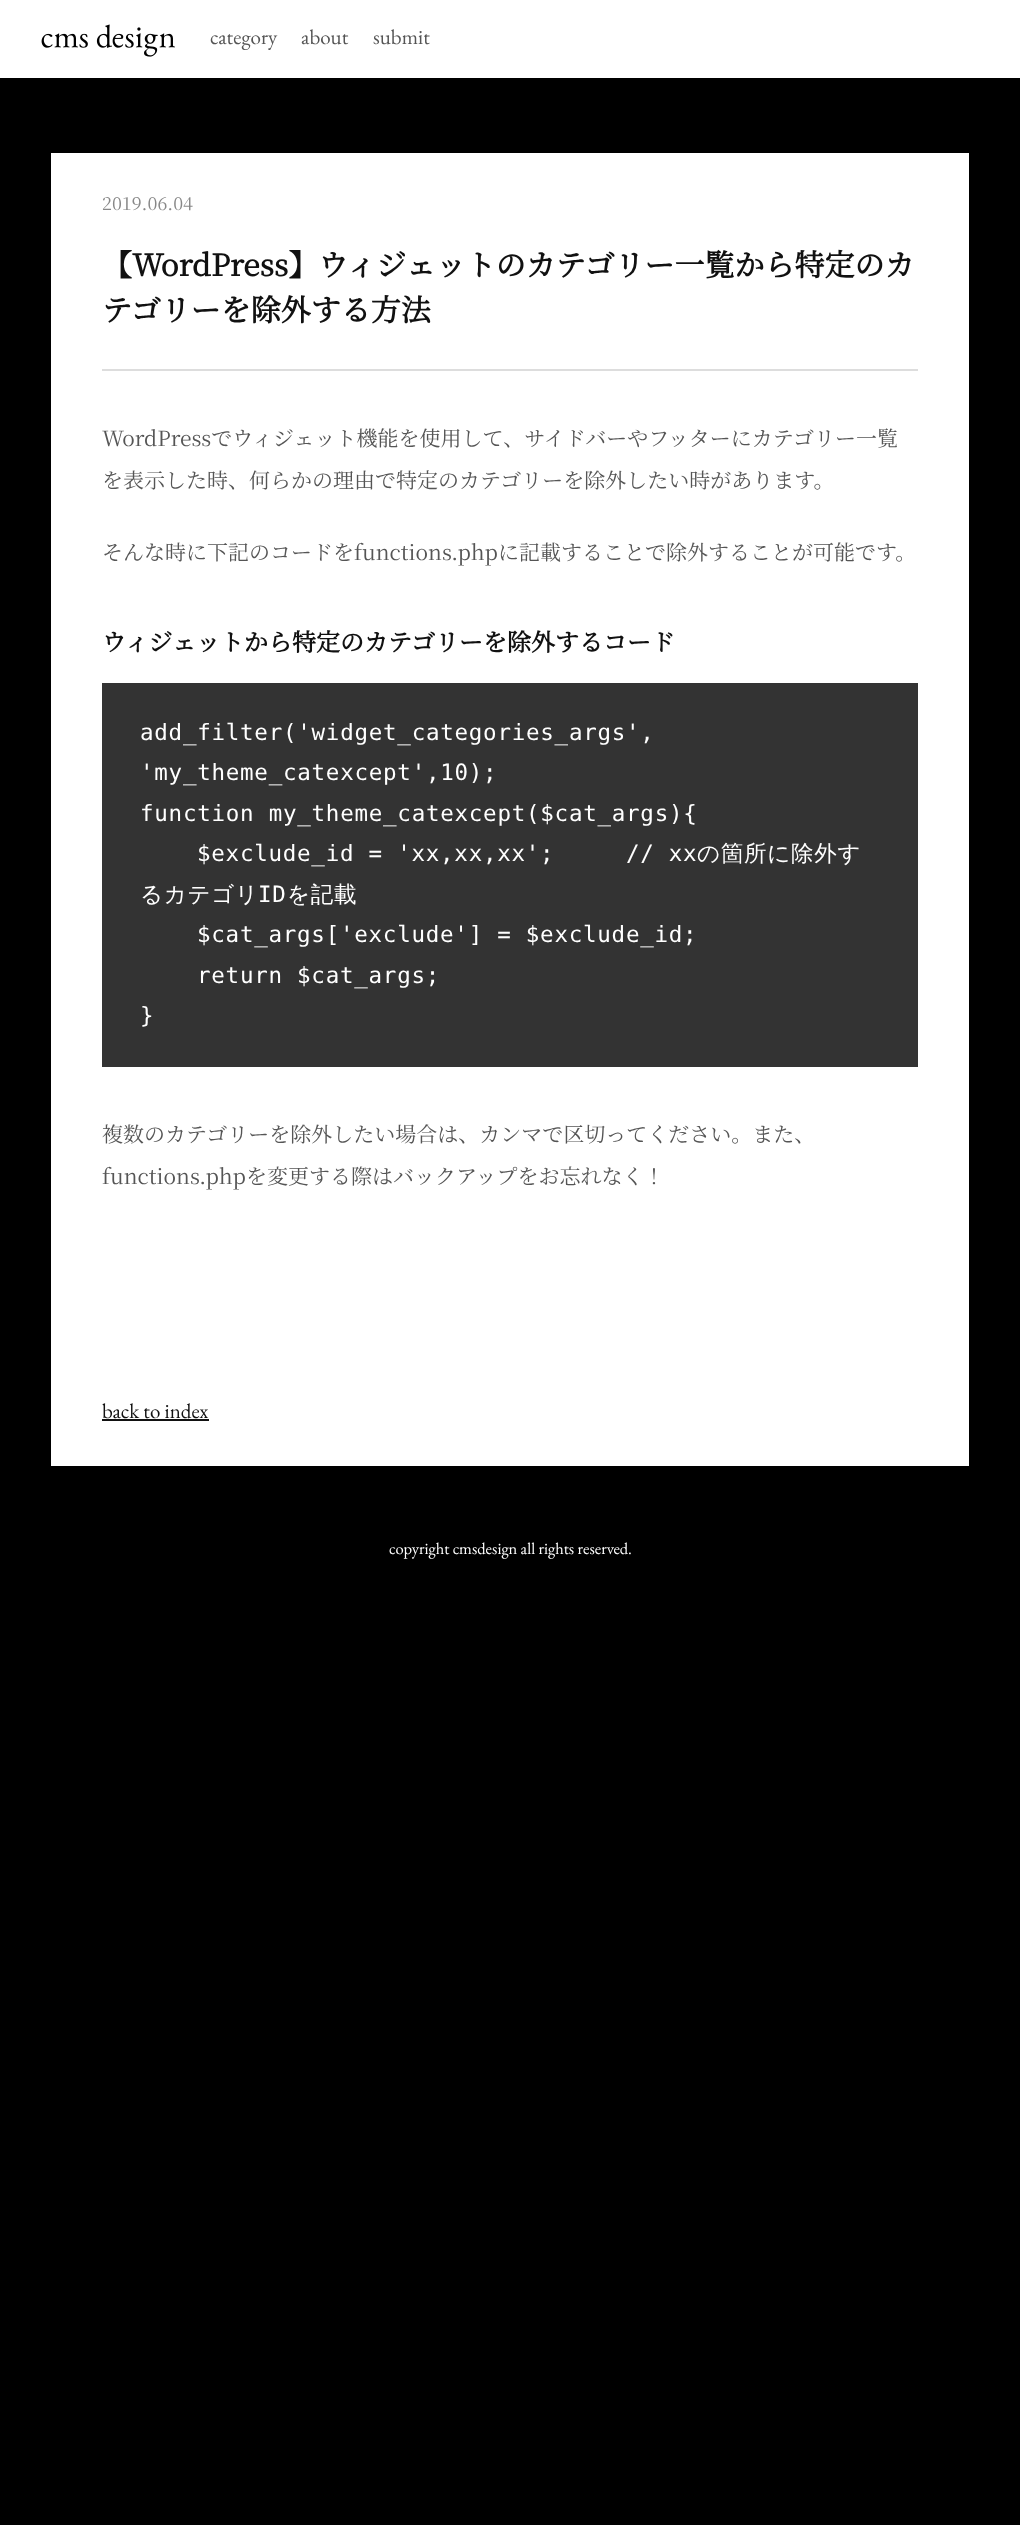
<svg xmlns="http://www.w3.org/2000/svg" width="1020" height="2525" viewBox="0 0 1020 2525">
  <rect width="100%" height="100%" fill="rgb(0,0,0)"/>
  <rect x="0" y="0" width="1020" height="78" fill="rgb(255,255,255)"/>
  <image x="41" y="24" width="134" height="33" href="pic1.png"/>
  <g font-family="EB Garamond" font-size="21" fill="rgb(85,85,85)">
    <text x="210" y="44">category</text>
    <text x="301" y="44">about</text>
    <text x="373" y="44">submit</text>
  </g>
  <rect x="51" y="153" width="918" height="1313" fill="rgb(255,255,255)"/>
  <rect x="102" y="369" width="816" height="2" fill="rgb(221,221,221)"/>
  <text x="102" y="210" font-family="Noto Serif JP" font-size="18" font-weight="200" fill="rgb(136,136,136)">2019.06.04</text>
  <g font-family="Noto Serif JP" font-size="30" font-weight="bold" fill="rgb(17,17,17)">
    <text>
      <tspan x="102" y="276">【WordPress】ウィジェットのカテゴリー一覧から特定のカ</tspan>
      <tspan x="102" y="321">テゴリーを除外する方法</tspan>
    </text>
  </g>
  <g font-family="Noto Serif JP" font-size="21" font-weight="200" fill="rgb(85,85,85)">
    <text x="102" y="446">WordPressでウィジェット機能を使用して、サイドバーやフッターにカテゴリー一覧</text>
    <text x="102" y="488">を表示した時、何らかの理由で特定のカテゴリーを除外したい時があります。</text>
    <text x="102" y="560">そんな時に下記のコードをfunctions.phpに記載することで除外することが可能です。</text>
  </g>
  <text x="102" y="651" font-family="Noto Serif JP" font-size="24" font-weight="bold" fill="rgb(17,17,17)">ウィジェットから特定のカテゴリーを除外するコード</text>
  <rect x="102" y="683" width="816" height="384" fill="rgb(51,51,51)"/>
  <g font-family="DejaVu Sans Mono" font-size="22.5" letter-spacing="0.75" fill="rgb(255,255,255)">
    <text>
      <tspan x="140" y="740">add_filter('widget_categories_args',</tspan>
      <tspan x="140" y="780">'my_theme_catexcept',10);</tspan>
      <tspan x="140" y="821">function my_theme_catexcept($cat_args){</tspan>
    </text>
    <text x="197" y="861" xml:space="preserve">$exclude_id = 'xx,xx,xx';     // xx</text>
  </g>
  <g font-family="WenQuanYi Zen Hei" font-size="22.5" font-weight="500" letter-spacing="0.75" fill="rgb(255,255,255)">
    <text x="697" y="861">の箇所に除外す</text>
    <text x="140" y="902">るカテゴリ</text>
  </g>
  <text x="258" y="902" font-family="DejaVu Sans Mono" font-size="22.5" letter-spacing="0.75" fill="rgb(255,255,255)">ID</text>
  <text x="287" y="902" font-family="WenQuanYi Zen Hei" font-size="22.5" font-weight="500" letter-spacing="0.75" fill="rgb(255,255,255)">を記載</text>
  <g font-family="DejaVu Sans Mono" font-size="22.5" letter-spacing="0.75" fill="rgb(255,255,255)">
    <text>
      <tspan x="197" y="942">$cat_args['exclude'] = $exclude_id;</tspan>
      <tspan x="197" y="983">return $cat_args;</tspan>
    </text>
    <text x="140" y="1023">}</text>
  </g>
  <g font-family="Noto Serif JP" font-size="21" font-weight="200" fill="rgb(85,85,85)">
    <text x="102" y="1142">複数のカテゴリーを除外したい場合は、カンマで区切ってください。また、</text>
    <text x="102" y="1184">functions.phpを変更する際はバックアップをお忘れなく！</text>
  </g>
  <text x="102" y="1418" font-family="EB Garamond" font-size="21" fill="rgb(17,17,17)">back to index</text>
  <rect x="102" y="1419" width="107" height="2" fill="rgb(17,17,17)"/>
  <text x="389" y="1554" font-family="EB Garamond" font-size="16.5" fill="rgb(255,255,255)">copyright cmsdesign all rights reserved.</text>
</svg>
